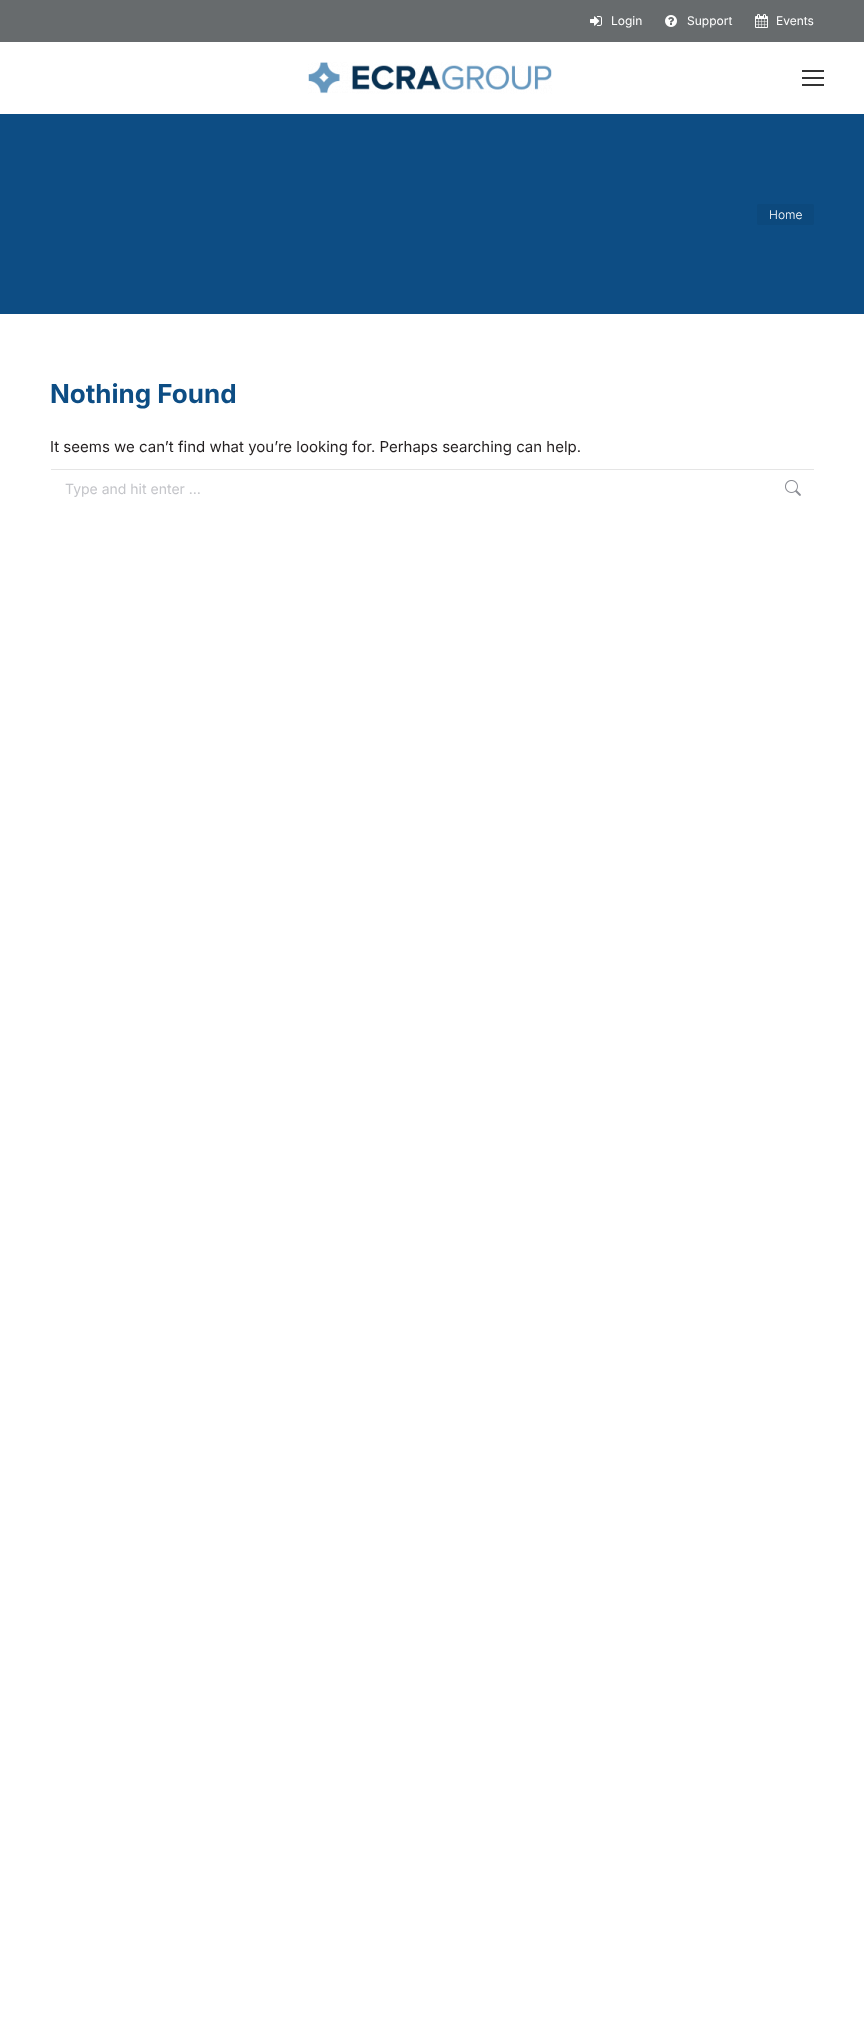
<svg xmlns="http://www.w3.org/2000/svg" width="864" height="2043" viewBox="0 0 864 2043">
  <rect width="100%" height="100%" fill="rgb(255,255,255)"/>
  <rect x="0" y="0" width="864" height="42" fill="rgb(103,107,109)"/>
  <image x="590" y="16" width="12" height="10" href="pic1.png"/>
  <text x="611" y="25" font-family="Inter" font-size="12" fill="rgb(255,255,255)">Login</text>
  <image x="665" y="15" width="12" height="12" href="pic2.png"/>
  <text x="687" y="25" font-family="Inter" font-size="12" fill="rgb(255,255,255)">Support</text>
  <image x="755" y="14" width="13" height="14" href="pic3.png"/>
  <text x="776" y="25" font-family="Inter" font-size="12" fill="rgb(255,255,255)">Events</text>
  <image x="308" y="62" width="244" height="32" href="pic4.png"/>
  <rect x="802" y="70" width="22" height="2" fill="rgb(51,51,51)"/>
  <rect x="802" y="77" width="22" height="2" fill="rgb(51,51,51)"/>
  <rect x="802" y="84" width="22" height="2" fill="rgb(51,51,51)"/>
  <rect x="0" y="114" width="864" height="200" fill="rgb(13,77,132)"/>
  <rect x="757" y="204" width="57" height="21" rx="2" fill="rgb(12,73,125)"/>
  <text x="769" y="219" font-family="Inter" font-size="12" font-weight="300" fill="rgb(255,255,255)">Home</text>
  <text x="50" y="403" font-family="Inter" font-size="26" font-weight="bold" fill="rgb(13,77,132)">Nothing Found</text>
  <text x="50" y="452" font-family="Inter" font-size="15" fill="rgb(35,31,32)">It seems we can’t find what you’re looking for. Perhaps searching can help.</text>
  <rect x="51" y="469" width="763" height="1" fill="rgb(229,229,229)"/>
  <text x="65" y="494" font-family="Inter" font-size="14" fill="rgb(196,197,201)">Type and hit enter …</text>
  <image x="785" y="480" width="16" height="16" href="pic5.png"/>
</svg>
